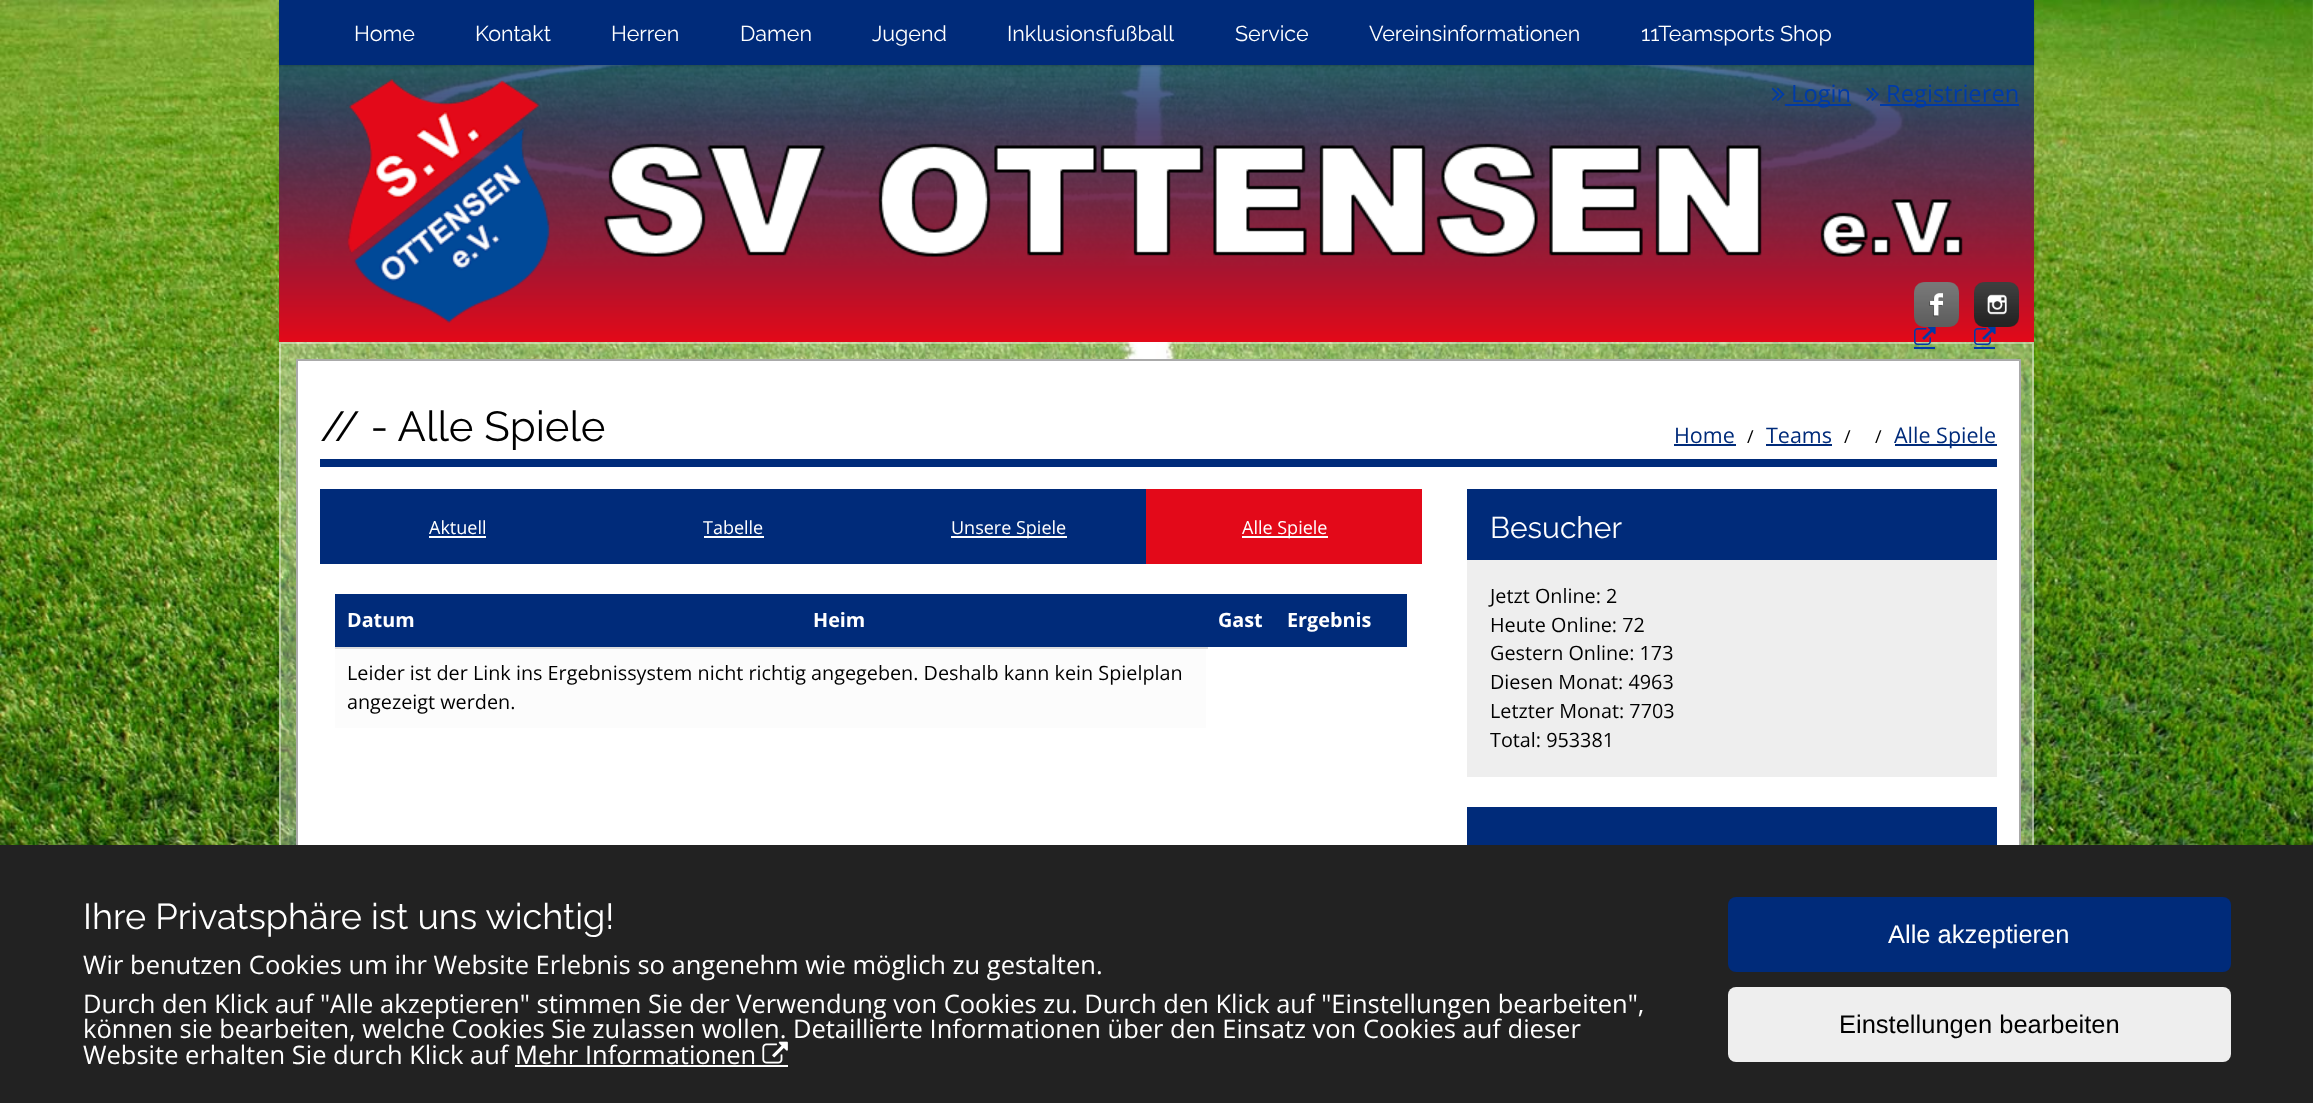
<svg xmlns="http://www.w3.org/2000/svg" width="2313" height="1103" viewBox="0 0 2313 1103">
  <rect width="100%" height="100%" fill="rgb(255,255,255)"/>
  <image x="0" y="0" width="2313" height="845" href="pic1.png"/>
  <image x="279" y="65" width="1755" height="277" href="pic2.png"/>
  <rect x="279" y="2" width="1755" height="64" fill="rgba(0,0,0,0.2)" filter="blur(1px)"/>
  <rect x="279" y="0" width="1755" height="65" fill="rgb(0,43,122)"/>
  <g font-family="Raleway" font-size="21.5" fill="rgb(255,255,255)">
    <text x="354" y="41">Home</text>
    <text x="475" y="41">Kontakt</text>
    <text x="611" y="41">Herren</text>
    <text x="740" y="41">Damen</text>
    <text x="872" y="41">Jugend</text>
    <text x="1007" y="41">Inklusionsfußball</text>
    <text x="1235" y="41">Service</text>
    <text x="1369" y="41">Vereinsinformationen</text>
    <text x="1641" y="41">11Teamsports Shop</text>
  </g>
  <image x="1914" y="282" width="45" height="45" href="pic3.png"/>
  <rect x="279" y="342" width="1755" height="503" fill="rgba(255,255,255,0.3)"/>
  <rect x="280" y="343" width="1753" height="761" fill="none" stroke="rgba(255,255,255,0.4)" stroke-width="2"/>
  <image x="1914" y="327" width="22" height="18" href="pic4.png"/>
  <rect x="1914" y="347" width="21" height="2" fill="rgb(0,59,168)"/>
  <image x="1974" y="282" width="45" height="45" href="pic5.png"/>
  <image x="1974" y="327" width="22" height="18" href="pic6.png"/>
  <rect x="1974" y="347" width="21" height="2" fill="rgb(0,59,168)"/>
  <image x="1771" y="87" width="14" height="14" href="pic7.png"/>
  <rect x="1785" y="104" width="66" height="2" fill="rgb(0,59,168)"/>
  <text x="1791" y="102" font-family="Open Sans" font-size="23.75" fill="rgb(0,59,168)">Login</text>
  <image x="1866" y="87" width="13" height="14" href="pic8.png"/>
  <rect x="1880" y="104" width="139" height="2" fill="rgb(0,59,168)"/>
  <text x="1886" y="102" font-family="Open Sans" font-size="23.75" fill="rgb(0,59,168)">Registrieren</text>
  <rect x="298" y="361" width="1721" height="484" fill="rgb(255,255,255)"/>
  <rect x="297" y="360" width="1723" height="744" fill="none" stroke="rgb(170,170,170)" stroke-width="2"/>
  <rect x="320" y="459" width="1677" height="8" fill="rgb(0,43,122)"/>
  <text x="320" y="441" font-family="Raleway" font-size="42" fill="rgb(0,0,0)">// - Alle Spiele</text>
  <text x="1674" y="443" font-family="Open Sans" font-size="21.5" fill="rgb(0,43,122)">Home</text>
  <rect x="1674" y="444" width="62" height="2" fill="rgb(0,43,122)"/>
  <text x="1747" y="443" font-family="Open Sans" font-size="18" fill="rgb(0,0,0)">/</text>
  <text x="1766" y="443" font-family="Open Sans" font-size="21.5" fill="rgb(0,43,122)">Teams</text>
  <rect x="1766" y="444" width="66" height="2" fill="rgb(0,43,122)"/>
  <g font-family="Open Sans" font-size="18" fill="rgb(0,0,0)">
    <text x="1844" y="443">/</text>
    <text x="1875" y="443">/</text>
  </g>
  <rect x="1895" y="444" width="102" height="2" fill="rgb(0,43,122)"/>
  <text x="1894" y="443" font-family="Open Sans" font-size="21.5" fill="rgb(0,43,122)">Alle Spiele</text>
  <rect x="320" y="489" width="826" height="75" fill="rgb(0,43,122)"/>
  <text x="429" y="534" font-family="Open Sans" font-size="18" fill="rgb(255,255,255)">Aktuell</text>
  <rect x="429" y="536" width="57" height="2" fill="rgb(255,255,255)"/>
  <text x="703" y="534" font-family="Open Sans" font-size="18" fill="rgb(255,255,255)">Tabelle</text>
  <rect x="704" y="536" width="60" height="2" fill="rgb(255,255,255)"/>
  <rect x="951" y="536" width="116" height="2" fill="rgb(255,255,255)"/>
  <text x="951" y="534" font-family="Open Sans" font-size="18" fill="rgb(255,255,255)">Unsere Spiele</text>
  <rect x="1146" y="489" width="276" height="75" fill="rgb(227,9,25)"/>
  <rect x="1242" y="536" width="86" height="2" fill="rgb(255,255,255)"/>
  <text x="1242" y="534" font-family="Open Sans" font-size="18" fill="rgb(255,255,255)">Alle Spiele</text>
  <rect x="335" y="594" width="1072" height="53" fill="rgb(0,43,122)"/>
  <g font-family="Open Sans" font-size="19.8" font-weight="bold" fill="rgb(255,255,255)">
    <text x="347" y="627">Datum</text>
    <text x="813" y="627">Heim</text>
    <text x="1218" y="627">Gast</text>
    <text x="1287" y="627">Ergebnis</text>
  </g>
  <rect x="335" y="649" width="871" height="79" fill="rgb(252,252,252)"/>
  <rect x="335" y="647" width="873" height="2" fill="rgb(221,221,221)"/>
  <g font-family="Open Sans" font-size="19.8" fill="rgb(0,0,0)">
    <text>
      <tspan x="347" y="680">Leider ist der Link ins Ergebnissystem nicht richtig angegeben. Deshalb kann kein Spielplan</tspan>
      <tspan x="347" y="709">angezeigt werden.</tspan>
    </text>
  </g>
  <rect x="1467" y="489" width="530" height="71" fill="rgb(0,43,122)"/>
  <text x="1490" y="538" font-family="Raleway" font-size="30" fill="rgb(255,255,255)">Besucher</text>
  <rect x="1467" y="560" width="530" height="217" fill="rgb(238,238,238)"/>
  <g font-family="Open Sans" font-size="19.8" fill="rgb(0,0,0)">
    <text>
      <tspan x="1490" y="603">Jetzt Online: 2</tspan>
      <tspan x="1490" y="632">Heute Online: 72</tspan>
      <tspan x="1490" y="660">Gestern Online: 173</tspan>
      <tspan x="1490" y="689">Diesen Monat: 4963</tspan>
      <tspan x="1490" y="718">Letzter Monat: 7703</tspan>
      <tspan x="1490" y="747">Total: 953381</tspan>
    </text>
  </g>
  <rect x="1467" y="807" width="530" height="38" fill="rgb(0,43,122)"/>
  <rect x="0" y="845" width="2313" height="258" fill="rgb(34,34,34)"/>
  <text x="83" y="929" font-family="Raleway" font-size="36" fill="rgb(255,255,255)">Ihre Privatsphäre ist uns wichtig!</text>
  <g font-family="Open Sans" font-size="25.5" fill="rgb(255,255,255)">
    <text>
      <tspan x="83" y="974">Wir benutzen Cookies um ihr Website Erlebnis so angenehm wie möglich zu gestalten.</tspan>
      <tspan x="83" y="1013">Durch den Klick auf "Alle akzeptieren" stimmen Sie der Verwendung von Cookies zu. Durch den Klick auf "Einstellungen bearbeiten",</tspan>
      <tspan x="83" y="1038">können sie bearbeiten, welche Cookies Sie zulassen wollen. Detaillierte Informationen über den Einsatz von Cookies auf dieser</tspan>
      <tspan x="83" y="1064">Website erhalten Sie durch Klick auf Mehr Informationen</tspan>
    </text>
  </g>
  <image x="762" y="1041" width="26" height="23" href="pic9.png"/>
  <rect x="515" y="1065" width="273" height="2" fill="rgb(255,255,255)"/>
  <rect x="1728" y="897" width="503" height="75" rx="8" fill="rgb(0,43,122)"/>
  <text x="1888" y="943" font-family="Liberation Sans" font-size="25.5" fill="rgb(255,255,255)">Alle akzeptieren</text>
  <rect x="1728" y="987" width="503" height="75" rx="8" fill="rgb(238,238,238)"/>
  <text x="1839" y="1033" font-family="Liberation Sans" font-size="25.5" fill="rgb(0,0,0)">Einstellungen bearbeiten</text>
</svg>
